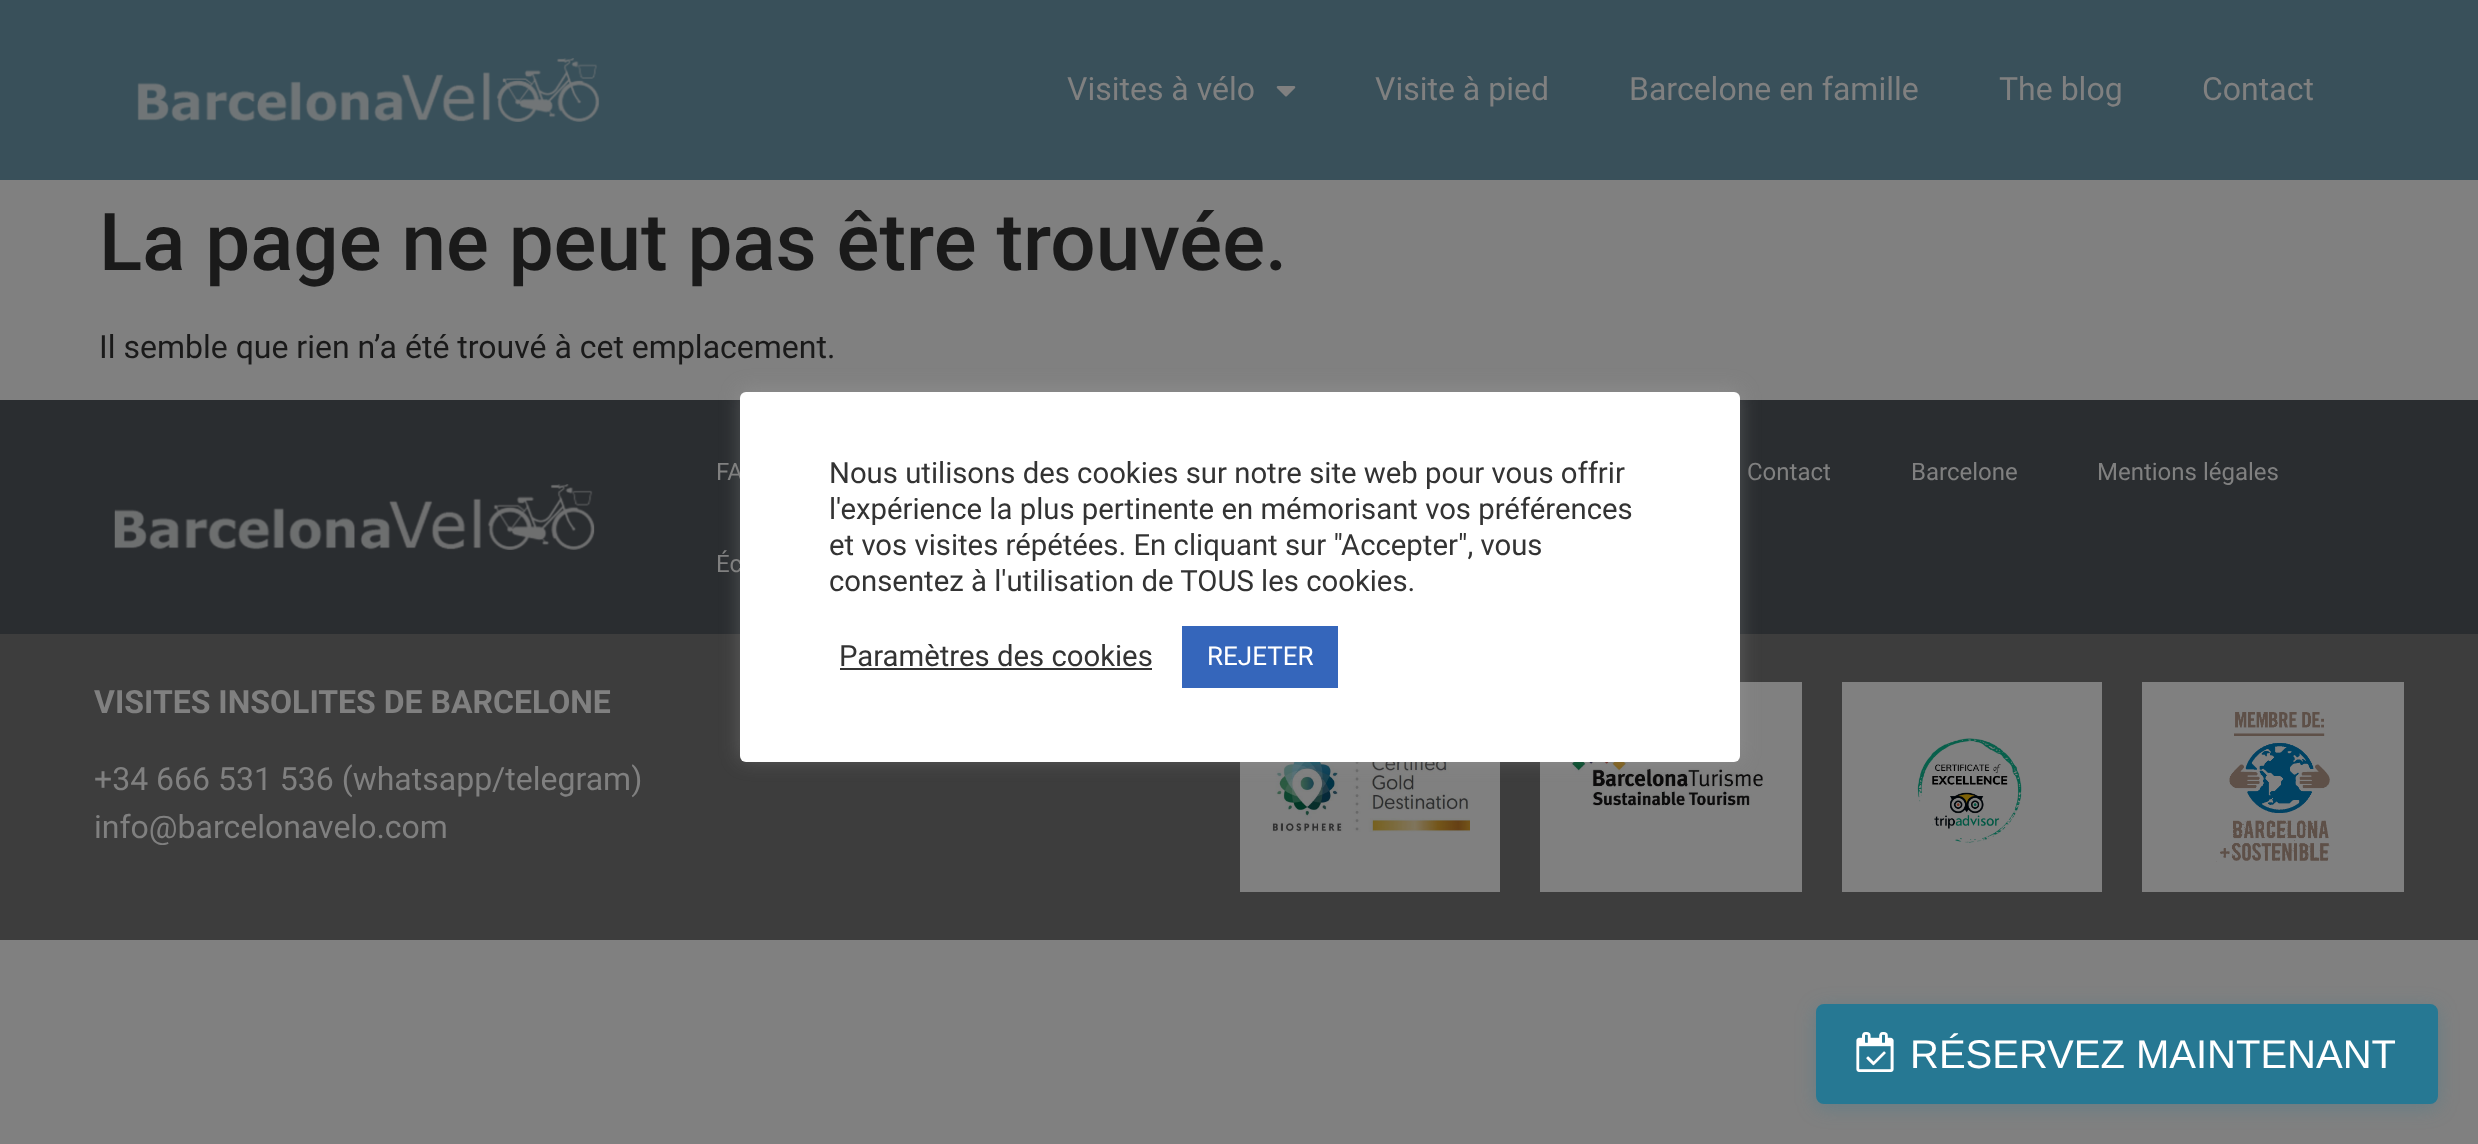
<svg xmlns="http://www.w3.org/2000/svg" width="2478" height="1144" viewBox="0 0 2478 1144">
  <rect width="100%" height="100%" fill="rgb(128,128,128)"/>
  <rect x="0" y="0" width="2478" height="180" fill="rgb(57,80,90)"/>
  <image x="137" y="58" width="463" height="64" href="pic1.png"/>
  <text x="1067" y="100" font-family="Roboto" font-size="32" fill="rgb(128,128,128)">Visites à vélo</text>
  <image x="1276" y="86" width="20" height="11" href="pic2.png"/>
  <g font-family="Roboto" font-size="32" fill="rgb(128,128,128)">
    <text x="1375" y="100">Visite à pied</text>
    <text x="1629" y="100">Barcelone en famille</text>
    <text x="1999" y="100">The blog</text>
    <text x="2202" y="100">Contact</text>
  </g>
  <text x="99" y="270" font-family="Roboto" font-size="80" font-weight="500" fill="rgb(26,26,26)">La page ne peut pas être trouvée.</text>
  <text x="99" y="358" font-family="Roboto" font-size="32" fill="rgb(26,26,26)">Il semble que rien n’a été trouvé à cet emplacement.</text>
  <rect x="0" y="400" width="2478" height="234" fill="rgb(42,45,48)"/>
  <rect x="0" y="634" width="2478" height="306" fill="rgb(61,61,61)"/>
  <rect x="1240" y="762" width="260" height="130" fill="rgb(128,128,128)"/>
  <image x="1272" y="762" width="198" height="70" href="pic4.png"/>
  <rect x="1540" y="682" width="262" height="210" fill="rgb(128,128,128)"/>
  <image x="1571" y="750" width="192" height="56" href="pic5.png"/>
  <rect x="740" y="390" width="1000" height="370" rx="6" fill="rgba(172,171,171,0.3)" filter="blur(10px)"/>
  <g font-family="Roboto" font-size="24" fill="rgb(128,128,128)">
    <text x="716" y="480">FA</text>
    <text x="716" y="572">Éc</text>
  </g>
  <rect x="740" y="392" width="1000" height="370" rx="6" fill="rgb(255,255,255)"/>
  <g font-family="Roboto" font-size="29.3" fill="rgb(51,51,51)">
    <text>
      <tspan x="829" y="483">Nous utilisons des cookies sur notre site web pour vous offrir</tspan>
      <tspan x="829" y="519">l'expérience la plus pertinente en mémorisant vos préférences</tspan>
      <tspan x="829" y="555">et vos visites répétées. En cliquant sur "Accepter", vous</tspan>
      <tspan x="829" y="591">consentez à l'utilisation de TOUS les cookies.</tspan>
    </text>
    <text x="839" y="666">Paramètres des cookies</text>
  </g>
  <rect x="840" y="668" width="312" height="2" fill="rgb(51,51,51)"/>
  <rect x="1182" y="626" width="156" height="62" fill="rgb(53,102,187)"/>
  <text x="1207" y="665" font-family="Roboto" font-size="26" fill="rgb(255,255,255)">REJETER</text>
  <image x="114" y="484" width="481" height="66" href="pic3.png"/>
  <g font-family="Roboto" font-size="24" fill="rgb(128,128,128)">
    <text x="1747" y="480">Contact</text>
    <text x="1911" y="480">Barcelone</text>
    <text x="2097" y="480">Mentions légales</text>
  </g>
  <text x="94" y="713" font-family="Roboto" font-size="32" font-weight="bold" fill="rgb(128,128,128)">VISITES INSOLITES DE BARCELONE</text>
  <g font-family="Roboto" font-size="32" fill="rgb(128,128,128)">
    <text>
      <tspan x="94" y="790">+34 666 531 536 (whatsapp/telegram)</tspan>
      <tspan x="94" y="838">info@barcelonavelo.com</tspan>
    </text>
  </g>
  <rect x="1842" y="682" width="260" height="210" fill="rgb(128,128,128)"/>
  <image x="1917" y="738" width="105" height="105" href="pic6.png"/>
  <rect x="2142" y="682" width="262" height="210" fill="rgb(128,128,128)"/>
  <image x="2216" y="712" width="114" height="150" href="pic7.png"/>
  <rect x="1816" y="1008" width="622" height="100" rx="8" fill="rgba(38,120,147,0.3)" filter="blur(10px)"/>
  <rect x="1817" y="1005" width="620" height="98" rx="7" fill="rgb(38,120,147)" stroke="rgb(38,120,147)" stroke-width="2"/>
  <image x="1856" y="1032" width="38" height="40" href="pic8.png"/>
  <text x="1910" y="1068" font-family="Liberation Sans" font-size="40" fill="rgb(255,255,255)">RÉSERVEZ MAINTENANT</text>
</svg>
